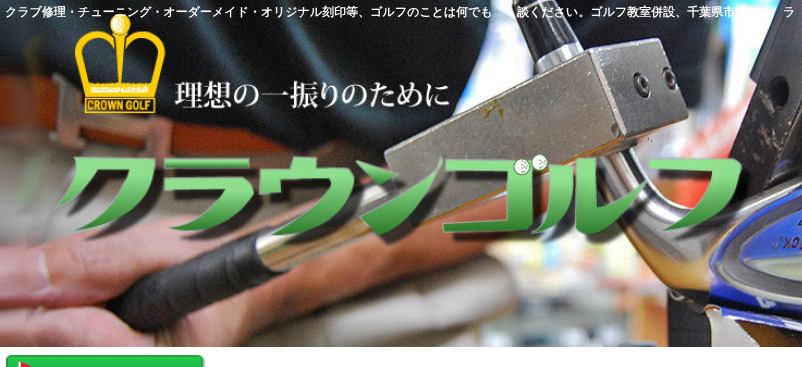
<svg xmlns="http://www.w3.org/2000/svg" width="802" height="367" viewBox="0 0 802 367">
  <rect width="100%" height="100%" fill="rgb(255,255,255)"/>
  <image x="0" y="0" width="802" height="347" href="pic1.png"/>
  <g font-family="WenQuanYi Zen Hei" font-size="12" font-weight="bold" fill="rgb(255,255,255)">
    <text x="5" y="16">クラブ修理・チューニング・オーダーメイド・オリジナル刻印等、ゴルフのことは何でも</text>
    <text x="517" y="16">談ください。ゴルフ教室併設、千葉県市</text>
    <text x="783" y="16">ラ</text>
  </g>
  <image x="5" y="355" width="201" height="12" href="pic2.png"/>
</svg>
